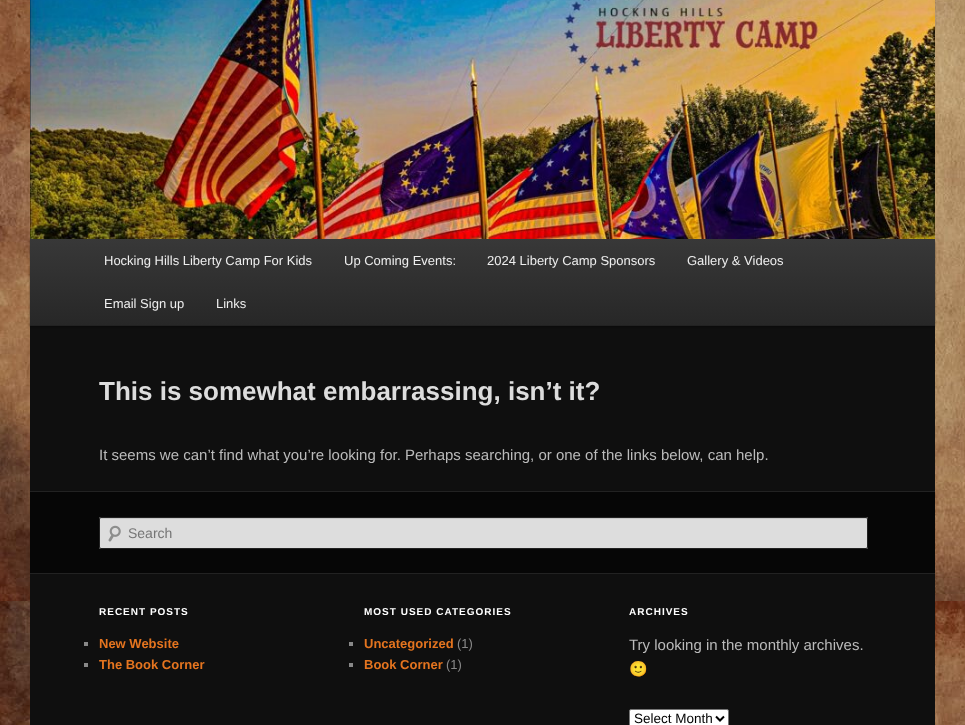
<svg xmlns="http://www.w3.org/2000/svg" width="965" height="725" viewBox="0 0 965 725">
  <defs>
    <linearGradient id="g1" gradientUnits="userSpaceOnUse" x1="483" y1="239" x2="483" y2="325"><stop offset="0" stop-color="rgb(56,56,56)"/><stop offset="1" stop-color="rgb(39,39,39)"/></linearGradient>
  </defs>
  <rect width="100%" height="100%" fill="rgb(255,255,255)"/>
  <image x="0" y="0" width="965" height="725" href="pic1.png"/>
  <rect x="30" y="326" width="905" height="399" fill="rgb(15,15,15)"/>
  <rect x="30" y="240" width="905" height="87" fill="rgba(0,0,0,0.4)" filter="blur(1px)"/>
  <image x="30" y="0" width="905" height="239" href="pic2.png"/>
  <rect x="30" y="239" width="905" height="86" fill="url(#g1)"/>
  <rect x="30" y="325" width="905" height="1" fill="rgb(34,34,34)"/>
  <g font-family="Liberation Sans" font-size="13" fill="rgb(238,238,238)">
    <text x="104" y="265">Hocking Hills Liberty Camp For Kids</text>
    <text x="344" y="265">Up Coming Events:</text>
    <text x="487" y="265">2024 Liberty Camp Sponsors</text>
    <text x="687" y="265">Gallery &amp; Videos</text>
    <text x="104" y="308">Email Sign up</text>
    <text x="216" y="308">Links</text>
  </g>
  <text x="99" y="400" font-family="Liberation Sans" font-size="26" font-weight="bold" fill="rgb(221,221,221)">This is somewhat embarrassing, isn’t it?</text>
  <text x="99" y="460" font-family="Liberation Sans" font-size="15" fill="rgb(187,187,187)">It seems we can’t find what you’re looking for. Perhaps searching, or one of the links below, can help.</text>
  <rect x="30" y="492" width="905" height="81" fill="rgb(6,6,6)"/>
  <rect x="30" y="491" width="905" height="1" fill="rgb(34,34,34)"/>
  <rect x="30" y="573" width="905" height="1" fill="rgb(34,34,34)"/>
  <rect x="99" y="517" width="769" height="32" rx="2" fill="rgb(221,221,221)"/>
  <image x="108" y="525" width="13" height="17" href="pic3.png"/>
  <path d="M101 519H866C867 519 867 519 867 520C867 519 867 518 866 518H101L100 519V520C100 519 100 519 101 519Z" fill="rgb(199,199,199)"/>
  <rect x="99.5" y="517.5" width="768" height="31" rx="1.5" fill="none" stroke="rgb(34,34,34)"/>
  <text x="128" y="538" font-family="Liberation Sans" font-size="14" fill="rgb(117,117,117)">Search</text>
  <text x="99" y="615" font-family="Liberation Sans" font-size="10" font-weight="bold" letter-spacing="1" fill="rgb(255,255,255)">RECENT POSTS</text>
  <rect x="84" y="642" width="4" height="4" fill="rgb(136,136,136)"/>
  <text x="99" y="648" font-family="Liberation Sans" font-size="13" font-weight="bold" fill="rgb(228,116,31)">New Website</text>
  <rect x="84" y="663" width="4" height="4" fill="rgb(136,136,136)"/>
  <text x="99" y="669" font-family="Liberation Sans" font-size="13" font-weight="bold" fill="rgb(228,116,31)">The Book Corner</text>
  <text x="364" y="615" font-family="Liberation Sans" font-size="10" font-weight="bold" letter-spacing="1" fill="rgb(255,255,255)">MOST USED CATEGORIES</text>
  <rect x="349" y="642" width="4" height="4" fill="rgb(136,136,136)"/>
  <text x="364" y="648" font-family="Liberation Sans" font-size="13" font-weight="bold" fill="rgb(228,116,31)">Uncategorized</text>
  <text x="457" y="648" font-family="Liberation Sans" font-size="13" fill="rgb(136,136,136)">(1)</text>
  <rect x="349" y="663" width="4" height="4" fill="rgb(136,136,136)"/>
  <text x="364" y="669" font-family="Liberation Sans" font-size="13" font-weight="bold" fill="rgb(228,116,31)">Book Corner</text>
  <text x="446" y="669" font-family="Liberation Sans" font-size="13" fill="rgb(136,136,136)">(1)</text>
  <text x="629" y="615" font-family="Liberation Sans" font-size="10" font-weight="bold" letter-spacing="1" fill="rgb(255,255,255)">ARCHIVES</text>
  <text x="629" y="650" font-family="Liberation Sans" font-size="15" fill="rgb(187,187,187)">Try looking in the monthly archives.</text>
  <text x="629" y="674" font-family="Noto Color Emoji" font-size="15" fill="rgb(187,187,187)">🙂</text>
  <rect x="629.5" y="709.5" width="99" height="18" rx="1.5" fill="rgb(255,255,255)" stroke="rgb(118,118,118)"/>
  <path d="M716 716.5L720 720.5L724 716.5" fill="none" stroke="rgb(0,0,0)" stroke-width="2"/>
  <text x="634" y="723" font-family="Liberation Sans" font-size="13.5" fill="rgb(0,0,0)">Select Month</text>
</svg>
